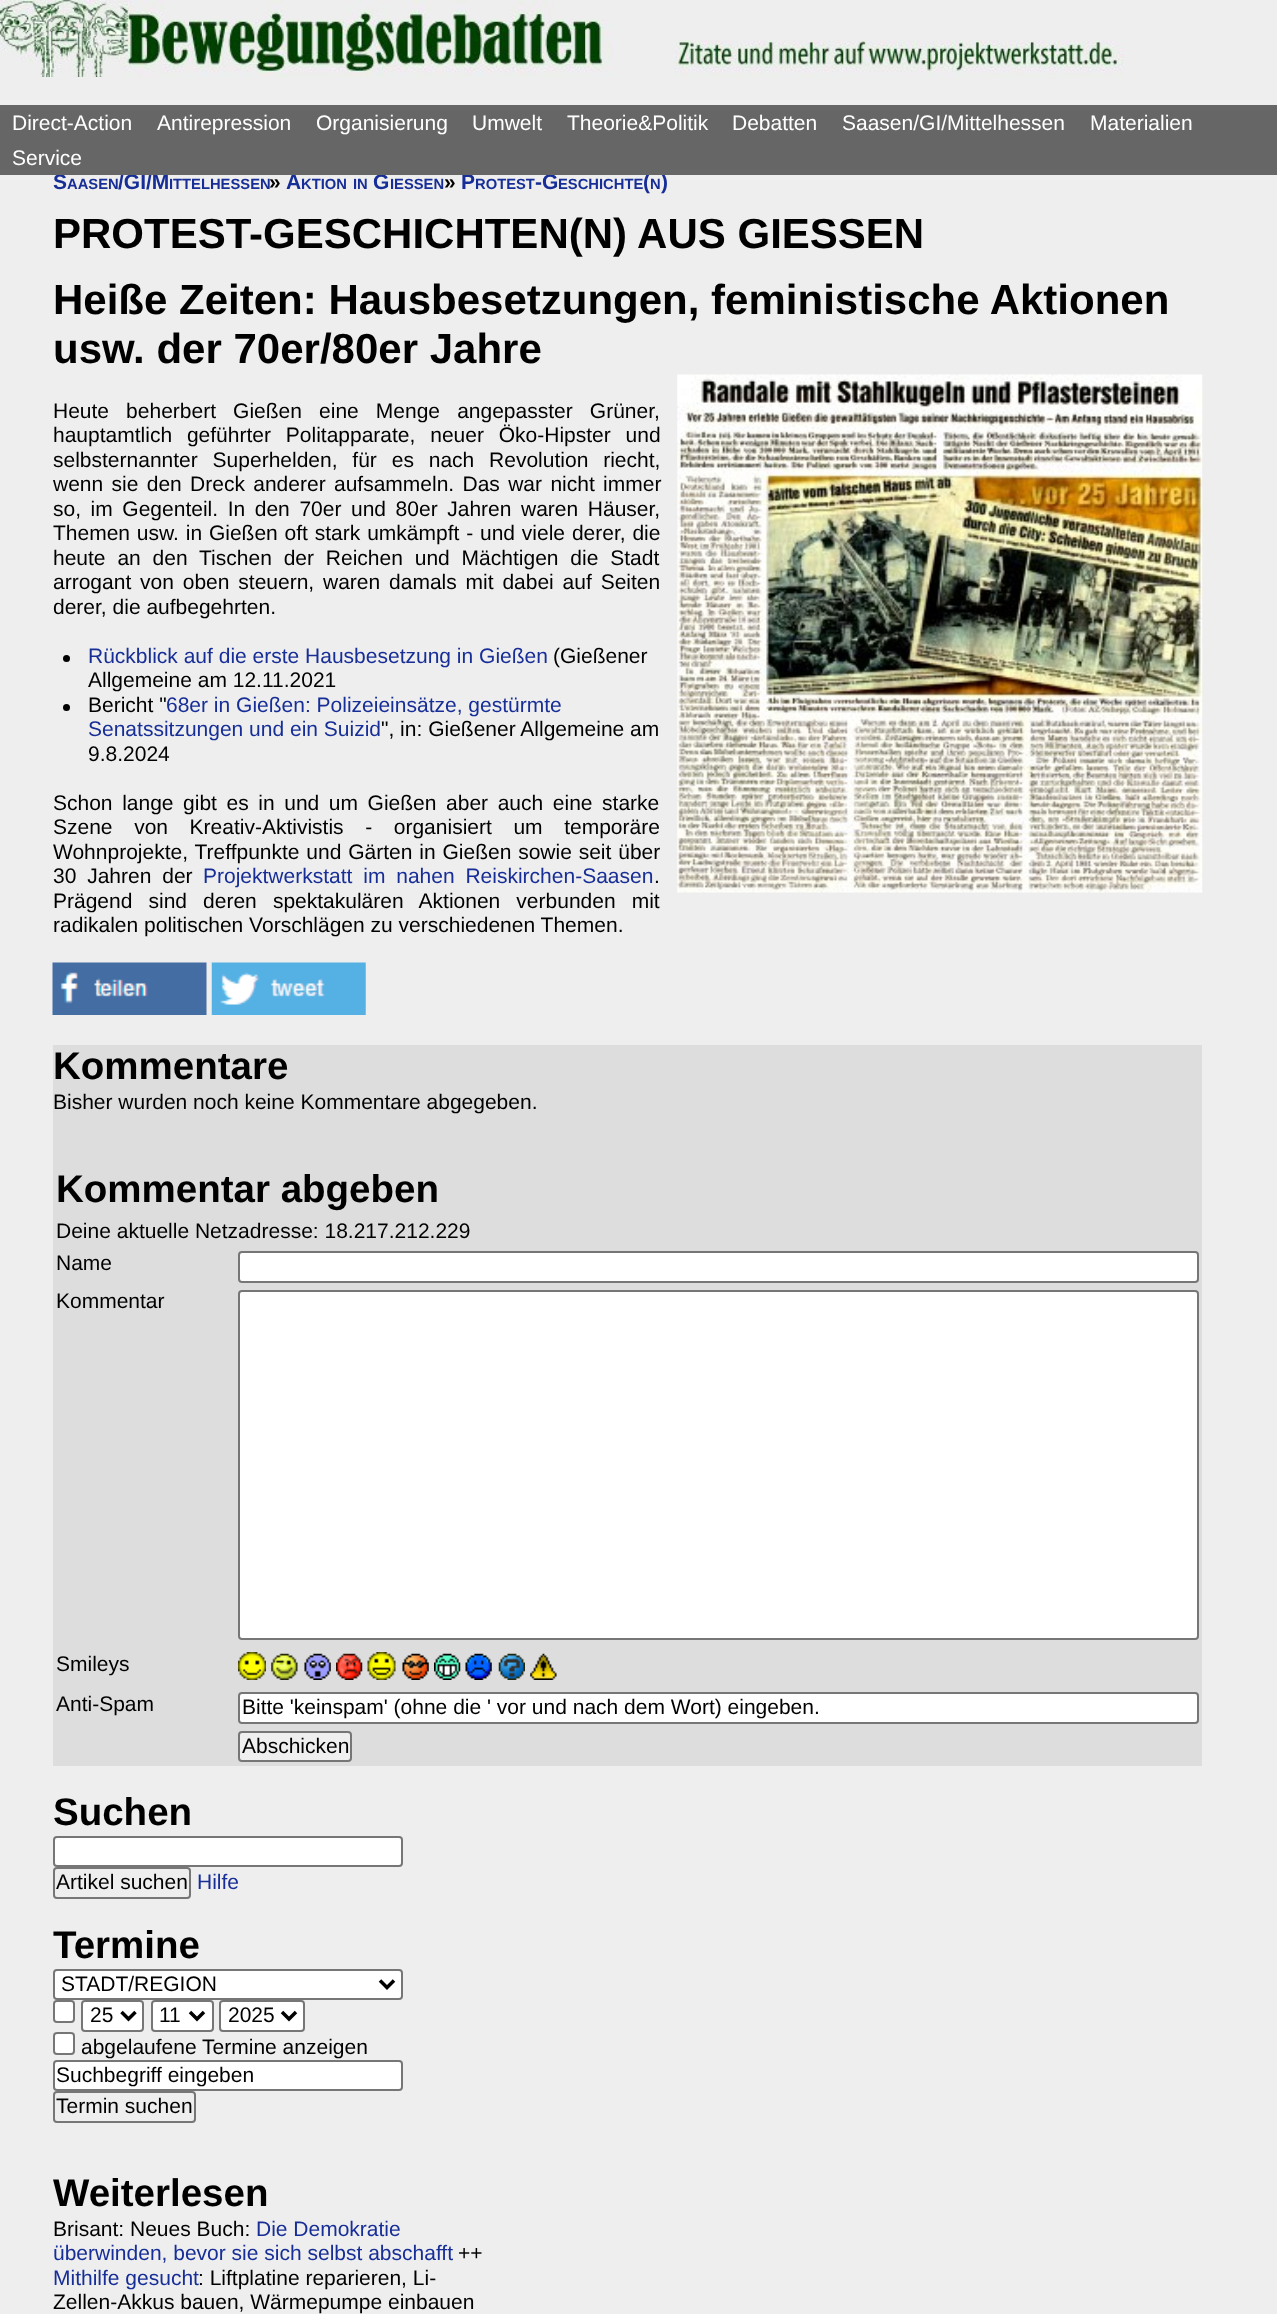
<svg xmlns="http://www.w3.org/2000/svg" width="1277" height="2314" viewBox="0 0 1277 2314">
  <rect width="100%" height="100%" fill="rgb(238,238,238)"/>
  <image x="0" y="0" width="1124" height="77" href="pic1.png"/>
  <g font-family="Liberation Sans" font-size="21" font-weight="bold" fill="rgb(23,46,151)">
    <text x="53" y="189">S</text>
    <text x="118" y="189">/GI/M</text>
    <text x="286" y="189">A</text>
    <text x="373" y="189">G</text>
    <text x="461" y="189">P</text>
    <text x="535" y="189">-G</text>
    <text x="643" y="189">(</text>
    <text x="661" y="189">)</text>
  </g>
  <rect x="0" y="105" width="1277" height="70" fill="rgb(102,102,102)"/>
  <g font-family="Liberation Sans" font-size="21" fill="rgb(255,255,255)">
    <text x="12" y="130">Direct-Action</text>
    <text x="157" y="130">Antirepression</text>
    <text x="316" y="130">Organisierung</text>
    <text x="472" y="130">Umwelt</text>
    <text x="567" y="130">Theorie&amp;Politik</text>
    <text x="732" y="130">Debatten</text>
    <text x="842" y="130">Saasen/GI/Mittelhessen</text>
    <text x="1090" y="130">Materialien</text>
    <text x="12" y="165">Service</text>
  </g>
  <g font-family="Liberation Sans" font-size="14.75" font-weight="bold" fill="rgb(23,46,151)">
    <text x="67" y="189">AASEN</text>
    <text x="169" y="189">ITTELHESSEN</text>
  </g>
  <text x="269" y="189" font-family="Liberation Sans" font-size="21" font-weight="bold" fill="rgb(0,0,0)">»</text>
  <g font-family="Liberation Sans" font-size="14.75" font-weight="bold" fill="rgb(23,46,151)">
    <text x="301" y="189">KTION</text>
    <text x="353" y="189">IN</text>
    <text x="390" y="189">IESSEN</text>
  </g>
  <text x="444" y="189" font-family="Liberation Sans" font-size="21" font-weight="bold" fill="rgb(0,0,0)">»</text>
  <g font-family="Liberation Sans" font-size="14.75" font-weight="bold" fill="rgb(23,46,151)">
    <text x="475" y="189">ROTEST</text>
    <text x="558" y="189">ESCHICHTE</text>
    <text x="650" y="189">N</text>
  </g>
  <g font-family="Liberation Sans" font-size="42" font-weight="bold" fill="rgb(0,0,0)">
    <text>
      <tspan x="53" y="248">PROTEST-GESCHICHTEN(N) AUS GIESSEN</tspan>
      <tspan x="53" y="314">Heiße Zeiten: Hausbesetzungen, feministische Aktionen</tspan>
      <tspan x="53" y="363">usw. der 70er/80er Jahre</tspan>
    </text>
  </g>
  <text x="53" y="418" word-spacing="11.25" font-family="Liberation Sans" font-size="21" fill="rgb(0,0,0)">Heute beherbert Gießen eine Menge angepasster Grüner,</text>
  <image x="677" y="374" width="526" height="519" href="pic2.png"/>
  <g font-family="Liberation Sans" font-size="21" fill="rgb(0,0,0)">
    <text>
      <tspan x="53" y="442" word-spacing="9">hauptamtlich geführter Politapparate, neuer Öko-Hipster und</tspan>
      <tspan x="53" y="467" word-spacing="9">selbsternannter Superhelden, für es nach Revolution riecht,</tspan>
      <tspan x="53" y="491" word-spacing="2.5">wenn sie den Dreck anderer aufsammeln. Das war nicht immer</tspan>
      <tspan x="53" y="516" word-spacing="3.75">so, im Gegenteil. In den 70er und 80er Jahren waren Häuser,</tspan>
      <tspan x="53" y="540" word-spacing="1">Themen usw. in Gießen oft stark umkämpft - und viele derer, die</tspan>
      <tspan x="53" y="565" word-spacing="6">heute an den Tischen der Reichen und Mächtigen die Stadt</tspan>
      <tspan x="53" y="589" word-spacing="3">arrogant von oben steuern, waren damals mit dabei auf Seiten</tspan>
      <tspan x="53" y="614">derer, die aufbegehrten.</tspan>
    </text>
  </g>
  <circle cx="66.5" cy="658.5" r="3.5" fill="rgb(0,0,0)"/>
  <text x="88" y="663" font-family="Liberation Sans" font-size="21" fill="rgb(23,46,151)">Rückblick auf die erste Hausbesetzung in Gießen</text>
  <g font-family="Liberation Sans" font-size="21" fill="rgb(0,0,0)">
    <text x="553" y="663">(Gießener</text>
    <text x="88" y="687">Allgemeine am 12.11.2021</text>
  </g>
  <circle cx="66.5" cy="707.5" r="3.5" fill="rgb(0,0,0)"/>
  <text x="88" y="712" font-family="Liberation Sans" font-size="21" fill="rgb(0,0,0)">Bericht "</text>
  <g font-family="Liberation Sans" font-size="21" fill="rgb(23,46,151)">
    <text x="166" y="712">68er in Gießen: Polizeieinsätze, gestürmte</text>
    <text x="88" y="736">Senatssitzungen und ein Suizid</text>
  </g>
  <g font-family="Liberation Sans" font-size="21" fill="rgb(0,0,0)">
    <text x="381" y="736">", in: Gießener Allgemeine am</text>
    <text x="88" y="761">9.8.2024</text>
    <text>
      <tspan x="53" y="810" word-spacing="3.75">Schon lange gibt es in und um Gießen aber auch eine starke</tspan>
      <tspan x="53" y="834" word-spacing="15.75">Szene von Kreativ-Aktivistis - organisiert um temporäre</tspan>
      <tspan x="53" y="859" word-spacing="1">Wohnprojekte, Treffpunkte und Gärten in Gießen sowie seit über</tspan>
      <tspan x="53" y="883" word-spacing="5">30 Jahren der</tspan>
    </text>
  </g>
  <text x="203" y="883" word-spacing="5" font-family="Liberation Sans" font-size="21" fill="rgb(23,46,151)">Projektwerkstatt im nahen Reiskirchen-Saasen</text>
  <g font-family="Liberation Sans" font-size="21" fill="rgb(0,0,0)">
    <text x="654" y="883">.</text>
    <text>
      <tspan x="53" y="908" word-spacing="10.25">Prägend sind deren spektakulären Aktionen verbunden mit</tspan>
      <tspan x="53" y="932">radikalen politischen Vorschlägen zu verschiedenen Themen.</tspan>
    </text>
  </g>
  <image x="52" y="962" width="155" height="53" href="pic3.png"/>
  <image x="211" y="962" width="155" height="53" href="pic4.png"/>
  <rect x="53" y="1045" width="1149" height="721" fill="rgb(221,221,221)"/>
  <text x="53" y="1079" font-family="Liberation Sans" font-size="38.5" font-weight="bold" fill="rgb(0,0,0)">Kommentare</text>
  <text x="53" y="1109" font-family="Liberation Sans" font-size="21" fill="rgb(0,0,0)">Bisher wurden noch keine Kommentare abgegeben.</text>
  <text x="56" y="1202" font-family="Liberation Sans" font-size="38.5" font-weight="bold" fill="rgb(0,0,0)">Kommentar abgeben</text>
  <g font-family="Liberation Sans" font-size="21" fill="rgb(0,0,0)">
    <text>
      <tspan x="56" y="1238">Deine aktuelle Netzadresse: 18.217.212.229</tspan>
      <tspan x="56" y="1270">Name</tspan>
    </text>
  </g>
  <rect x="239" y="1252" width="959" height="30" rx="3" fill="rgb(255,255,255)" stroke="rgb(118,118,118)" stroke-width="2"/>
  <text x="56" y="1308" font-family="Liberation Sans" font-size="21" fill="rgb(0,0,0)">Kommentar</text>
  <rect x="239" y="1291" width="959" height="348" rx="3" fill="rgb(255,255,255)" stroke="rgb(118,118,118)" stroke-width="2"/>
  <text x="56" y="1671" font-family="Liberation Sans" font-size="21" fill="rgb(0,0,0)">Smileys</text>
  <image x="238" y="1652" width="28" height="28" href="pic5.png"/>
  <image x="271" y="1653" width="27" height="27" href="pic6.png"/>
  <image x="304" y="1653" width="27" height="27" href="pic7.png"/>
  <image x="336" y="1653" width="27" height="27" href="pic8.png"/>
  <image x="367" y="1652" width="29" height="28" href="pic9.png"/>
  <image x="402" y="1653" width="27" height="27" href="pic10.png"/>
  <image x="434" y="1653" width="27" height="27" href="pic11.png"/>
  <image x="465" y="1653" width="27" height="27" href="pic12.png"/>
  <image x="498" y="1653" width="27" height="27" href="pic13.png"/>
  <image x="530" y="1653" width="27" height="27" href="pic14.png"/>
  <text x="56" y="1711" font-family="Liberation Sans" font-size="21" fill="rgb(0,0,0)">Anti-Spam</text>
  <rect x="239" y="1693" width="959" height="30" rx="3" fill="rgb(255,255,255)" stroke="rgb(118,118,118)" stroke-width="2"/>
  <text x="242" y="1714" font-family="Liberation Sans" font-size="21" fill="rgb(0,0,0)">Bitte 'keinspam' (ohne die ' vor und nach dem Wort) eingeben.</text>
  <rect x="239" y="1732" width="112" height="29" rx="3" fill="rgb(239,239,239)" stroke="rgb(118,118,118)" stroke-width="2"/>
  <text x="242" y="1753" font-family="Liberation Sans" font-size="21" fill="rgb(0,0,0)">Abschicken</text>
  <text x="53" y="1825" font-family="Liberation Sans" font-size="38.5" font-weight="bold" fill="rgb(0,0,0)">Suchen</text>
  <rect x="54" y="1837" width="348" height="29" rx="3" fill="rgb(255,255,255)" stroke="rgb(118,118,118)" stroke-width="2"/>
  <rect x="54" y="1868" width="136" height="30" rx="3" fill="none" stroke="rgb(118,118,118)" stroke-width="2"/>
  <text x="56" y="1889" font-family="Liberation Sans" font-size="21" fill="rgb(0,0,0)">Artikel suchen</text>
  <text x="197" y="1889" font-family="Liberation Sans" font-size="21" fill="rgb(23,46,151)">Hilfe</text>
  <text x="53" y="1958" font-family="Liberation Sans" font-size="38.5" font-weight="bold" fill="rgb(0,0,0)">Termine</text>
  <rect x="54" y="1970" width="348" height="29" rx="3" fill="rgb(255,255,255)" stroke="rgb(118,118,118)" stroke-width="2"/>
  <path d="M380 1980.5L387 1987.5L394 1980.5" fill="none" stroke="rgb(0,0,0)" stroke-width="3.5"/>
  <text x="61" y="1991" font-family="Liberation Sans" font-size="21" fill="rgb(0,0,0)">STADT/REGION</text>
  <rect x="54" y="2001" width="20" height="21" rx="3" fill="rgb(255,255,255)" stroke="rgb(118,118,118)" stroke-width="2"/>
  <rect x="82" y="2001" width="61" height="30" rx="3" fill="rgb(255,255,255)" stroke="rgb(118,118,118)" stroke-width="2"/>
  <path d="M121.5 2012L128.5 2019L135.5 2012" fill="none" stroke="rgb(0,0,0)" stroke-width="3.5"/>
  <text x="90" y="2022" font-family="Liberation Sans" font-size="21" fill="rgb(0,0,0)">25</text>
  <rect x="152" y="2001" width="61" height="30" rx="3" fill="rgb(255,255,255)" stroke="rgb(118,118,118)" stroke-width="2"/>
  <path d="M190 2012L197 2019L204 2012" fill="none" stroke="rgb(0,0,0)" stroke-width="3.5"/>
  <text x="159" y="2022" font-family="Liberation Sans" font-size="21" fill="rgb(0,0,0)">11</text>
  <rect x="220" y="2001" width="84" height="30" rx="3" fill="rgb(255,255,255)" stroke="rgb(118,118,118)" stroke-width="2"/>
  <path d="M282 2012L289 2019L296 2012" fill="none" stroke="rgb(0,0,0)" stroke-width="3.5"/>
  <text x="228" y="2022" font-family="Liberation Sans" font-size="21" fill="rgb(0,0,0)">2025</text>
  <rect x="54" y="2033" width="20" height="21" rx="3" fill="rgb(255,255,255)" stroke="rgb(118,118,118)" stroke-width="2"/>
  <text x="81" y="2054" font-family="Liberation Sans" font-size="21" fill="rgb(0,0,0)">abgelaufene Termine anzeigen</text>
  <rect x="54" y="2061" width="348" height="29" rx="3" fill="rgb(255,255,255)" stroke="rgb(118,118,118)" stroke-width="2"/>
  <text x="56" y="2082" font-family="Liberation Sans" font-size="21" fill="rgb(0,0,0)">Suchbegriff eingeben</text>
  <rect x="54" y="2092" width="141" height="30" rx="3" fill="none" stroke="rgb(118,118,118)" stroke-width="2"/>
  <text x="56" y="2113" font-family="Liberation Sans" font-size="21" fill="rgb(0,0,0)">Termin suchen</text>
  <text x="53" y="2206" font-family="Liberation Sans" font-size="38.5" font-weight="bold" fill="rgb(0,0,0)">Weiterlesen</text>
  <text x="53" y="2236" font-family="Liberation Sans" font-size="21" fill="rgb(0,0,0)">Brisant: Neues Buch:</text>
  <g font-family="Liberation Sans" font-size="21" fill="rgb(23,46,151)">
    <text x="256" y="2236">Die Demokratie</text>
    <text x="53" y="2260">überwinden, bevor sie sich selbst abschafft</text>
  </g>
  <text x="458" y="2260" font-family="Liberation Sans" font-size="21" fill="rgb(0,0,0)">++</text>
  <text x="53" y="2285" font-family="Liberation Sans" font-size="21" fill="rgb(23,46,151)">Mithilfe gesucht</text>
  <g font-family="Liberation Sans" font-size="21" fill="rgb(0,0,0)">
    <text x="198" y="2285">: Liftplatine reparieren, Li-</text>
    <text x="53" y="2309">Zellen-Akkus bauen, Wärmepumpe einbauen</text>
  </g>
</svg>
